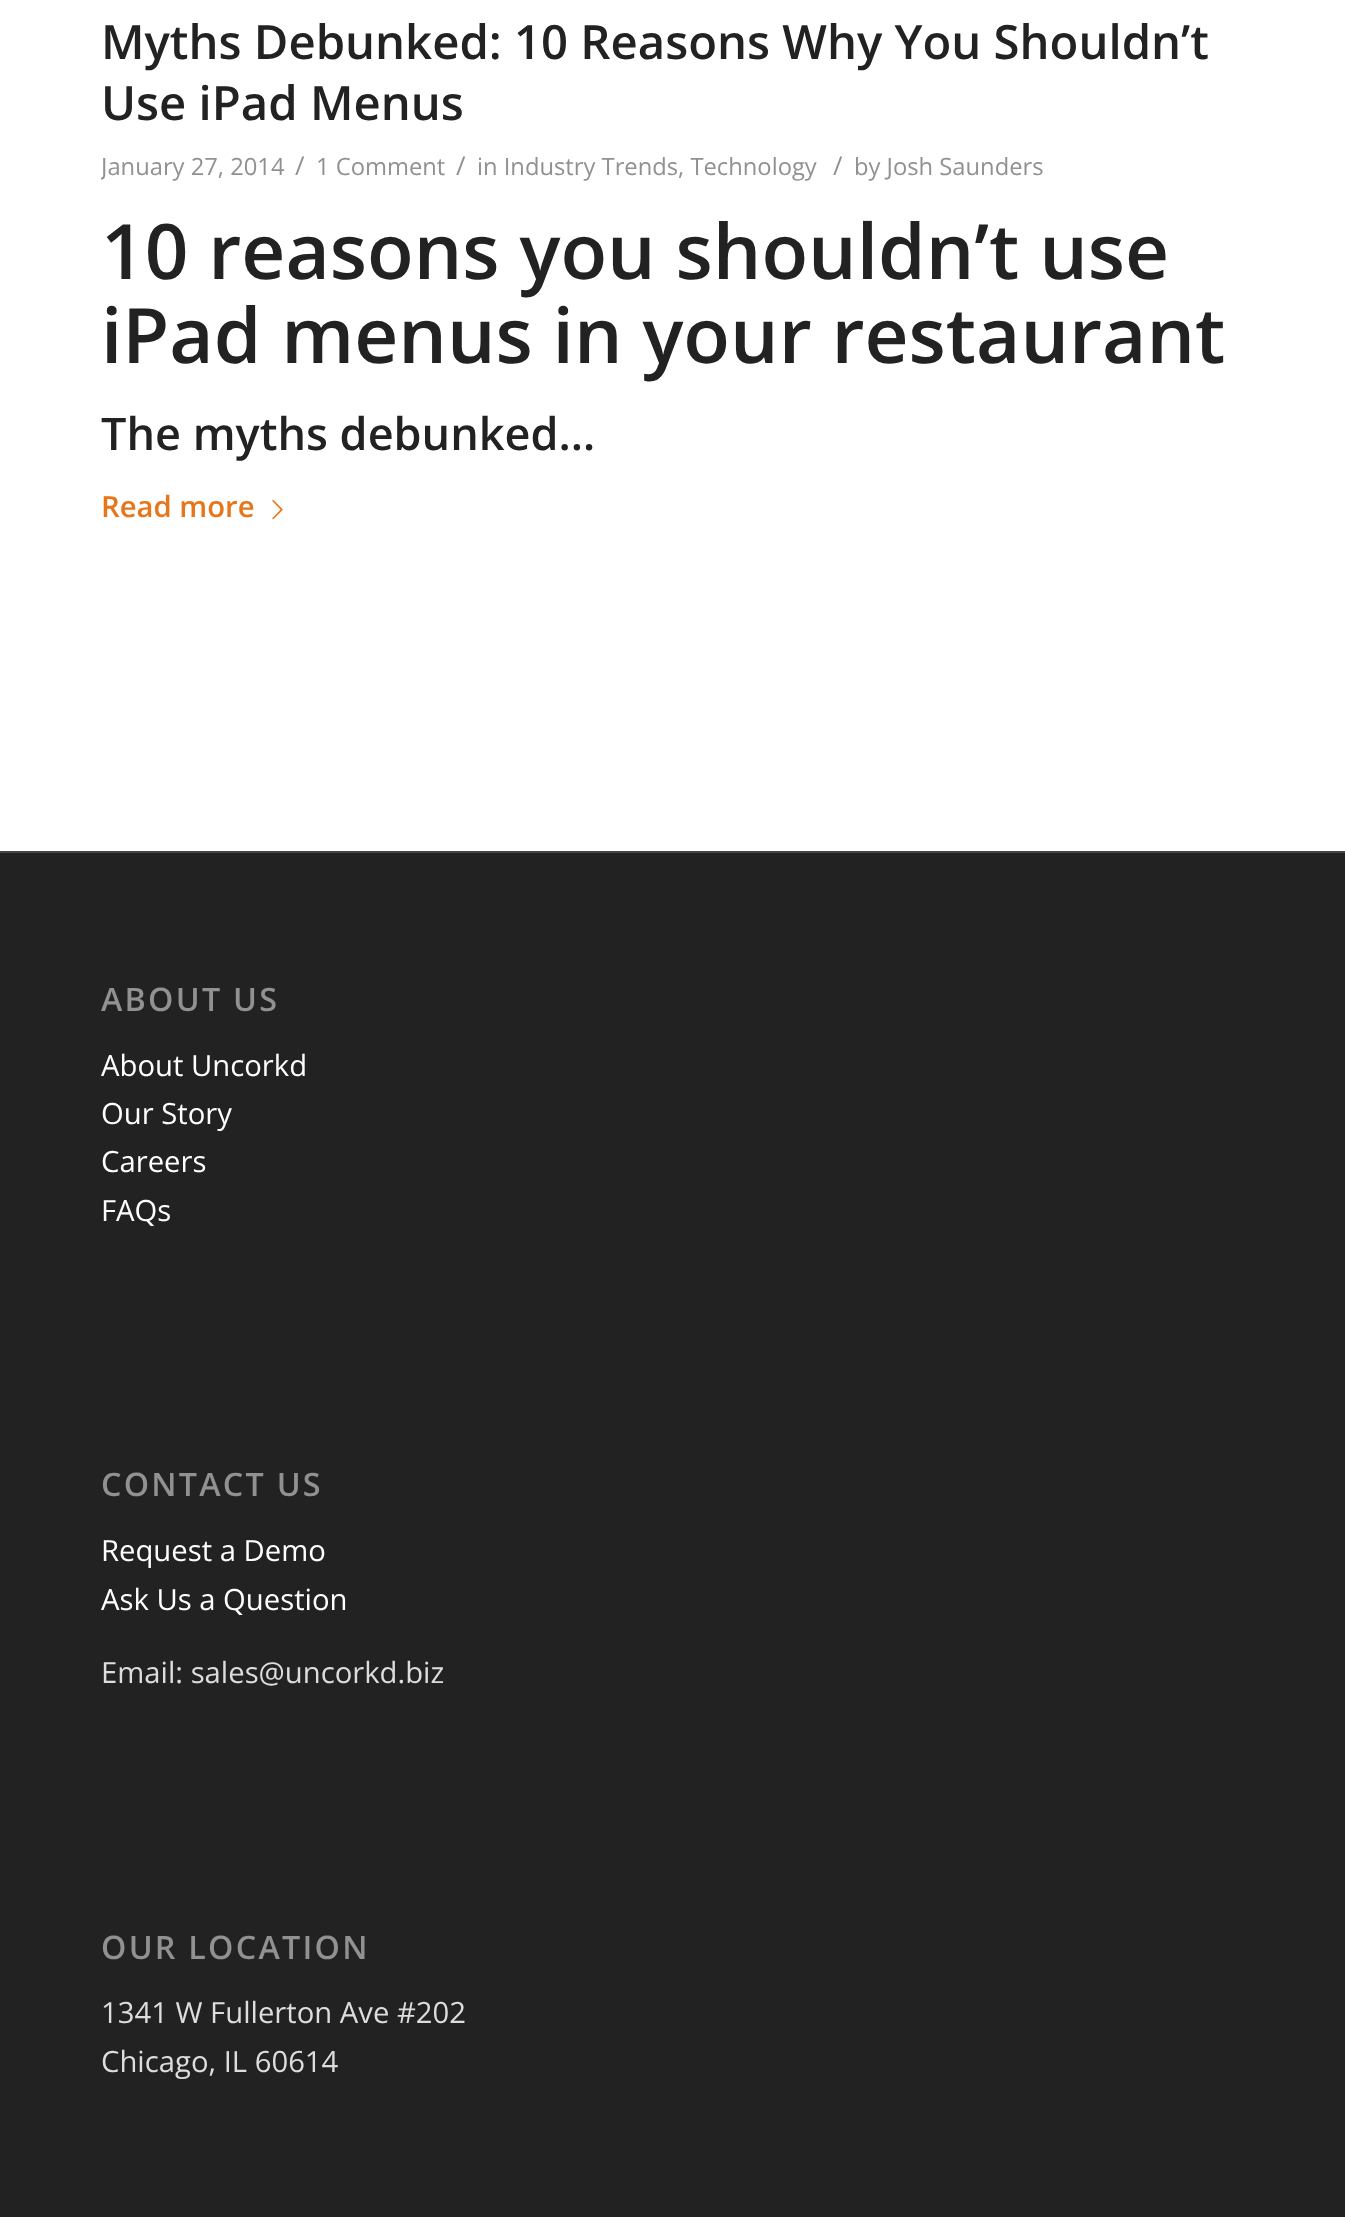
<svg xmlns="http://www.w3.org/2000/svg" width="1345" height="2217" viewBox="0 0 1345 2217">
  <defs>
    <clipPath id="clip1"><rect x="101" y="11" width="1143" height="682"/></clipPath>
  </defs>
  <rect width="100%" height="100%" fill="rgb(255,255,255)"/>
  <g font-family="Open Sans" font-size="47.25" font-weight="600" fill="rgb(34,34,34)">
    <text>
      <tspan x="101" y="59">Myths Debunked: 10 Reasons Why You Shouldn’t</tspan>
      <tspan x="101" y="120">Use iPad Menus</tspan>
    </text>
  </g>
  <g clip-path="url(#clip1)">
    <text x="101" y="175" font-family="Open Sans" font-size="23.75" fill="rgb(145,145,145)">January 27, 2014</text>
  </g>
  <text x="295" y="175" font-family="Open Sans" font-size="26" fill="rgb(145,145,145)">/</text>
  <text x="316" y="175" font-family="Open Sans" font-size="23.75" fill="rgb(145,145,145)">1 Comment</text>
  <text x="456" y="175" font-family="Open Sans" font-size="26" fill="rgb(145,145,145)">/</text>
  <text x="477" y="175" font-family="Open Sans" font-size="23.75" fill="rgb(145,145,145)">in Industry Trends, Technology</text>
  <text x="833" y="175" font-family="Open Sans" font-size="26" fill="rgb(145,145,145)">/</text>
  <text x="854" y="175" font-family="Open Sans" font-size="23.75" fill="rgb(145,145,145)">by Josh Saunders</text>
  <g font-family="Open Sans" font-size="76.5" font-weight="600" fill="rgb(34,34,34)">
    <text>
      <tspan x="101" y="279">10 reasons you shouldn’t use</tspan>
      <tspan x="101" y="363">iPad menus in your restaurant</tspan>
    </text>
  </g>
  <text x="101" y="450" font-family="Open Sans" font-size="45" font-weight="600" fill="rgb(34,34,34)">The myths debunked…</text>
  <text x="101" y="517" font-family="Open Sans" font-size="29.25" font-weight="600" fill="rgb(231,117,25)">Read more</text>
  <image x="272" y="500" width="11" height="20" href="pic1.png"/>
  <rect x="0" y="853" width="1345" height="1364" fill="rgb(34,34,34)"/>
  <rect x="0" y="851" width="1345" height="2" fill="rgb(68,68,68)"/>
  <text x="101" y="1011" font-family="Open Sans" font-size="32.25" font-weight="600" letter-spacing="2.25" fill="rgb(145,145,145)">ABOUT US</text>
  <g font-family="Open Sans" font-size="29.25" fill="rgb(255,255,255)">
    <text>
      <tspan x="101" y="1076">About Uncorkd</tspan>
      <tspan x="101" y="1124">Our Story</tspan>
      <tspan x="101" y="1172">Careers</tspan>
      <tspan x="101" y="1221">FAQs</tspan>
    </text>
  </g>
  <text x="101" y="1496" font-family="Open Sans" font-size="32.25" font-weight="600" letter-spacing="2.25" fill="rgb(145,145,145)">CONTACT US</text>
  <g font-family="Open Sans" font-size="29.25" fill="rgb(255,255,255)">
    <text>
      <tspan x="101" y="1561">Request a Demo</tspan>
      <tspan x="101" y="1610">Ask Us a Question</tspan>
    </text>
  </g>
  <text x="101" y="1683" font-family="Open Sans" font-size="29.25" fill="rgb(221,221,221)">Email: sales@uncorkd.biz</text>
  <text x="101" y="1959" font-family="Open Sans" font-size="32.25" font-weight="600" letter-spacing="2.25" fill="rgb(145,145,145)">OUR LOCATION</text>
  <g font-family="Open Sans" font-size="29.25" fill="rgb(221,221,221)">
    <text>
      <tspan x="101" y="2023">1341 W Fullerton Ave #202</tspan>
      <tspan x="101" y="2072">Chicago, IL 60614</tspan>
    </text>
  </g>
</svg>
